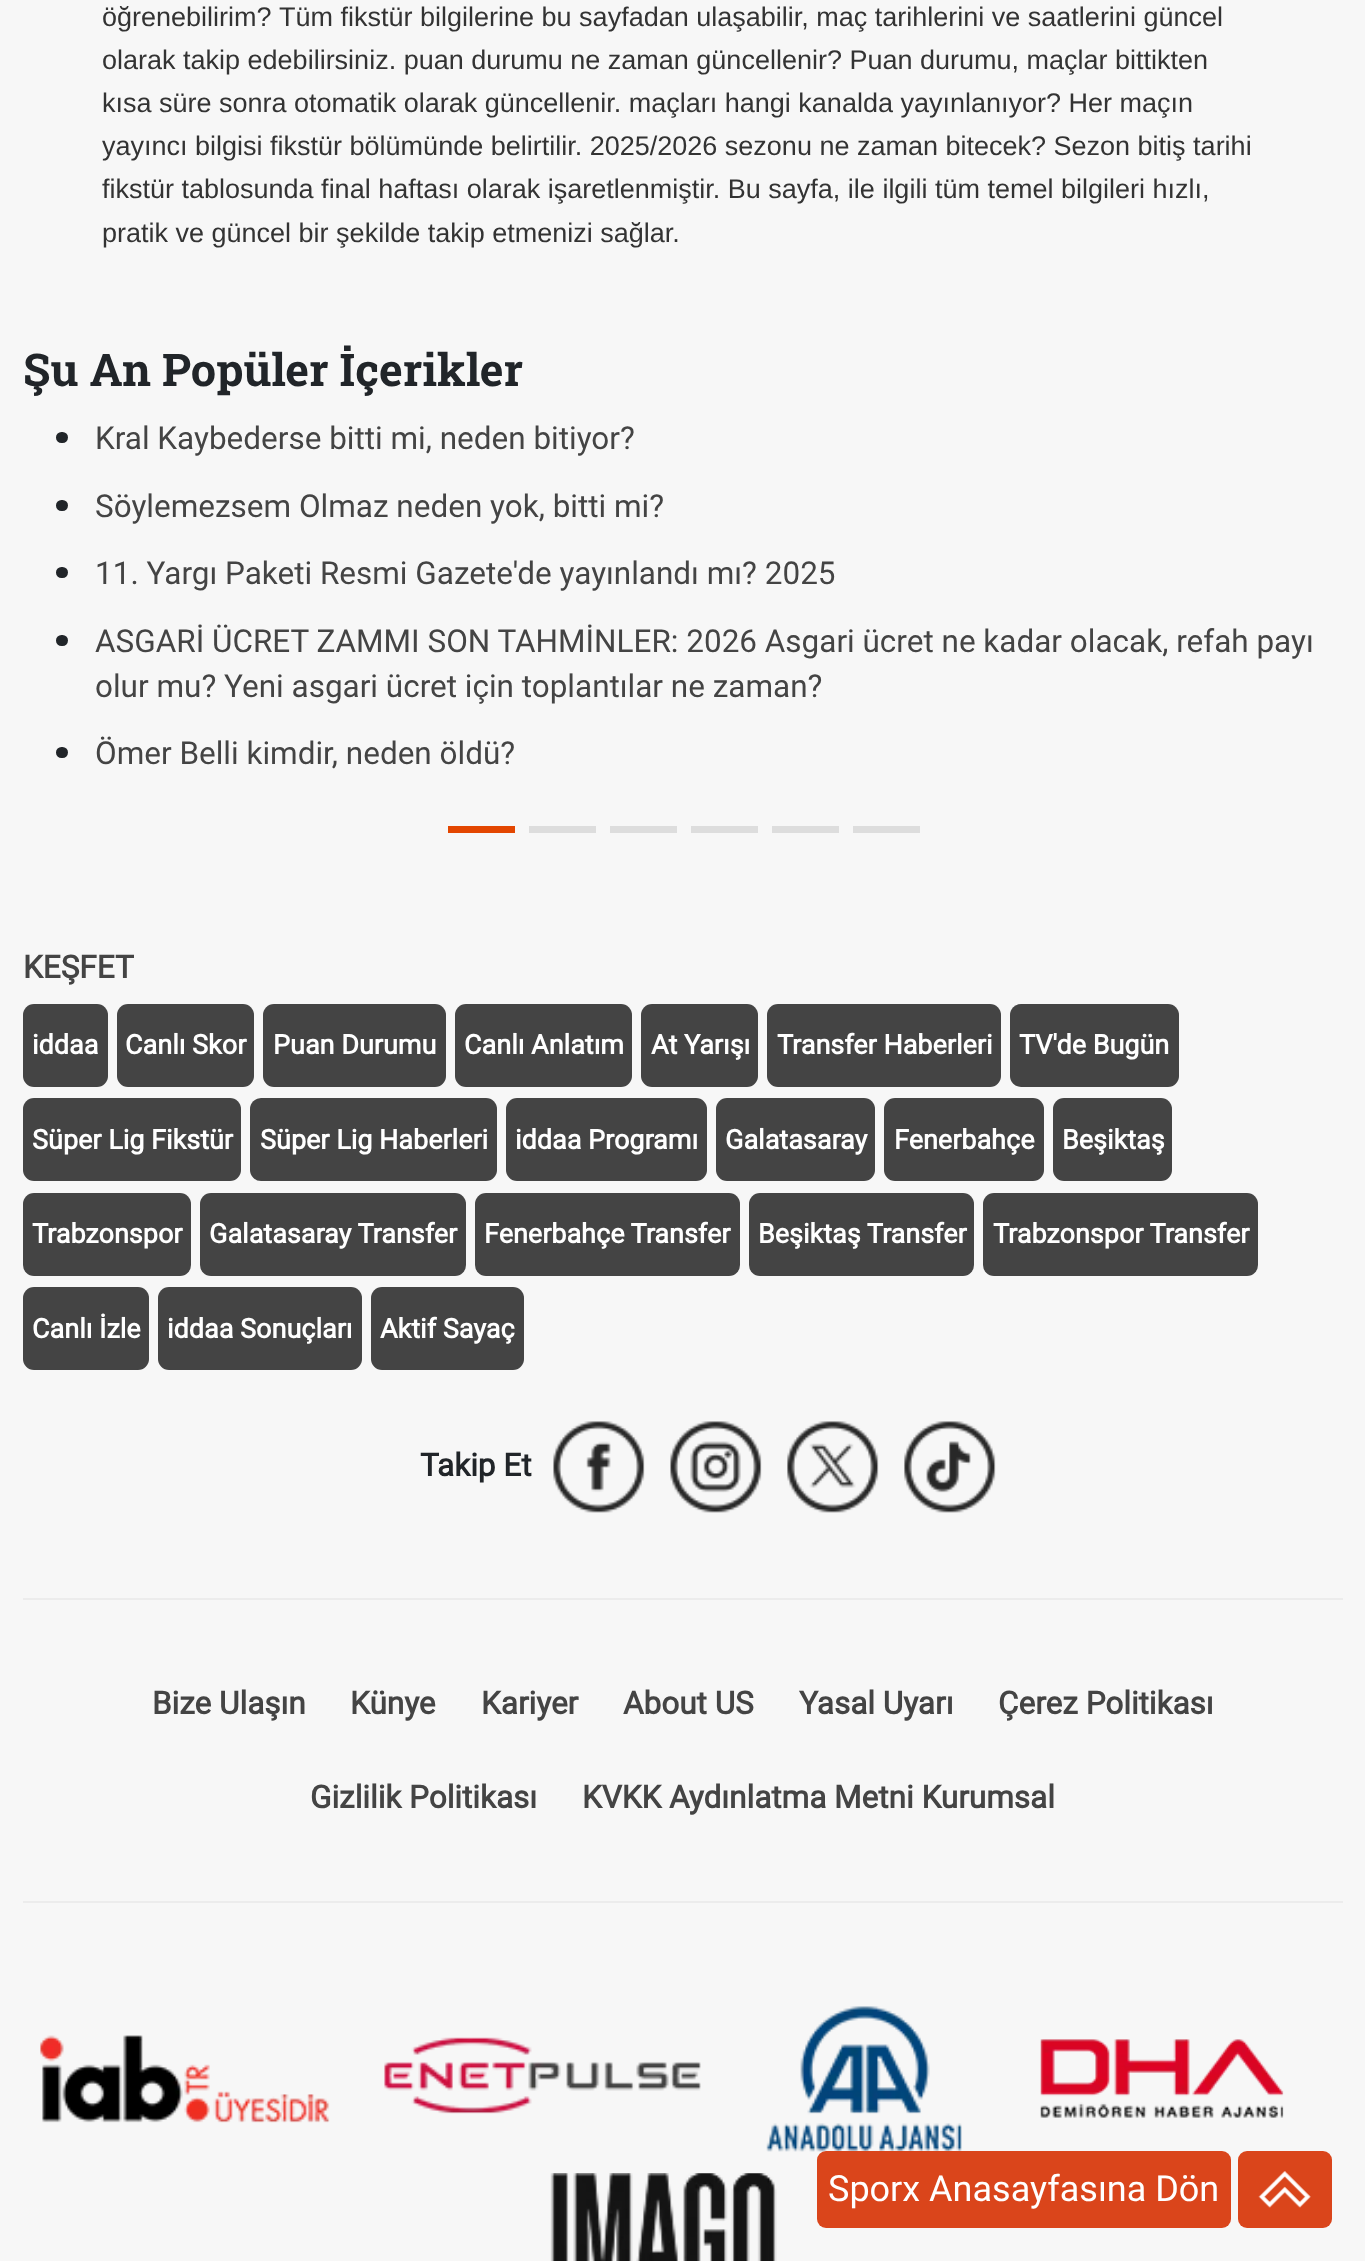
<svg xmlns="http://www.w3.org/2000/svg" width="1365" height="2261" viewBox="0 0 1365 2261">
  <rect width="100%" height="100%" fill="rgb(247,247,247)"/>
  <g font-family="Liberation Sans" font-size="27" fill="rgb(51,51,51)">
    <text x="102" y="26">öğrenebilirim?</text>
    <text x="279" y="26">Tüm fikstür bilgilerine bu sayfadan ulaşabilir, maç tarihlerini ve saatlerini güncel</text>
    <text>
      <tspan x="102" y="69">olarak takip edebilirsiniz. puan durumu ne zaman güncellenir? Puan durumu, maçlar bittikten</tspan>
      <tspan x="102" y="112">kısa süre sonra otomatik olarak güncellenir. maçları hangi kanalda yayınlanıyor? Her maçın</tspan>
      <tspan x="102" y="155">yayıncı bilgisi fikstür bölümünde belirtilir. 2025/2026 sezonu ne zaman bitecek? Sezon bitiş tarihi</tspan>
      <tspan x="102" y="198">fikstür tablosunda final haftası olarak işaretlenmiştir. Bu sayfa, ile ilgili tüm temel bilgileri hızlı,</tspan>
      <tspan x="102" y="242">pratik ve güncel bir şekilde takip etmenizi sağlar.</tspan>
    </text>
  </g>
  <text x="23" y="386" font-family="Roboto Slab" font-size="45" font-weight="bold" fill="rgb(33,37,41)">Şu An Popüler İçerikler</text>
  <rect x="56" y="432" width="12" height="11" rx="5.5" fill="rgb(33,37,41)"/>
  <text x="95" y="449" font-family="Roboto" font-size="31.5" fill="rgb(68,68,68)">Kral Kaybederse bitti mi, neden bitiyor?</text>
  <rect x="56" y="500" width="12" height="11" rx="5.5" fill="rgb(33,37,41)"/>
  <text x="95" y="517" font-family="Roboto" font-size="31.5" fill="rgb(68,68,68)">Söylemezsem Olmaz neden yok, bitti mi?</text>
  <rect x="56" y="567" width="12" height="11" rx="5.5" fill="rgb(33,37,41)"/>
  <text x="95" y="584" font-family="Roboto" font-size="31.5" fill="rgb(68,68,68)">11. Yargı Paketi Resmi Gazete'de yayınlandı mı? 2025</text>
  <rect x="56" y="635" width="12" height="11" rx="5.5" fill="rgb(33,37,41)"/>
  <g font-family="Roboto" font-size="31.5" fill="rgb(68,68,68)">
    <text>
      <tspan x="95" y="652">ASGARİ ÜCRET ZAMMI SON TAHMİNLER: 2026 Asgari ücret ne kadar olacak, refah payı</tspan>
      <tspan x="95" y="697">olur mu? Yeni asgari ücret için toplantılar ne zaman?</tspan>
    </text>
  </g>
  <rect x="56" y="747" width="12" height="11" rx="5.5" fill="rgb(33,37,41)"/>
  <text x="95" y="764" font-family="Roboto" font-size="31.5" fill="rgb(68,68,68)">Ömer Belli kimdir, neden öldü?</text>
  <rect x="448" y="826" width="67" height="7" fill="rgb(227,70,0)"/>
  <rect x="529" y="826" width="67" height="7" fill="rgb(221,221,221)"/>
  <rect x="610" y="826" width="67" height="7" fill="rgb(221,221,221)"/>
  <rect x="691" y="826" width="67" height="7" fill="rgb(221,221,221)"/>
  <rect x="772" y="826" width="67" height="7" fill="rgb(221,221,221)"/>
  <rect x="853" y="826" width="67" height="7" fill="rgb(221,221,221)"/>
  <text x="23" y="978" font-family="Roboto" font-size="31.5" font-weight="bold" fill="rgb(68,68,68)">KEŞFET</text>
  <rect x="23" y="1004" width="85" height="83" rx="11" fill="rgb(68,68,68)"/>
  <text x="32" y="1054" font-family="Roboto" font-size="27" font-weight="bold" fill="rgb(255,255,255)">iddaa</text>
  <rect x="117" y="1004" width="137" height="83" rx="11" fill="rgb(68,68,68)"/>
  <text x="125" y="1054" font-family="Roboto" font-size="27" font-weight="bold" fill="rgb(255,255,255)">Canlı Skor</text>
  <rect x="263" y="1004" width="183" height="83" rx="11" fill="rgb(68,68,68)"/>
  <text x="273" y="1054" font-family="Roboto" font-size="27" font-weight="bold" fill="rgb(255,255,255)">Puan Durumu</text>
  <rect x="455" y="1004" width="177" height="83" rx="11" fill="rgb(68,68,68)"/>
  <text x="464" y="1054" font-family="Roboto" font-size="27" font-weight="bold" fill="rgb(255,255,255)">Canlı Anlatım</text>
  <rect x="641" y="1004" width="117" height="83" rx="11" fill="rgb(68,68,68)"/>
  <text x="651" y="1054" font-family="Roboto" font-size="27" font-weight="bold" fill="rgb(255,255,255)">At Yarışı</text>
  <rect x="767" y="1004" width="234" height="83" rx="11" fill="rgb(68,68,68)"/>
  <text x="777" y="1054" font-family="Roboto" font-size="27" font-weight="bold" fill="rgb(255,255,255)">Transfer Haberleri</text>
  <rect x="1010" y="1004" width="169" height="83" rx="11" fill="rgb(68,68,68)"/>
  <text x="1019" y="1054" font-family="Roboto" font-size="27" font-weight="bold" fill="rgb(255,255,255)">TV'de Bugün</text>
  <rect x="23" y="1098" width="218" height="83" rx="11" fill="rgb(68,68,68)"/>
  <text x="32" y="1149" font-family="Roboto" font-size="27" font-weight="bold" fill="rgb(255,255,255)">Süper Lig Fikstür</text>
  <rect x="250" y="1098" width="247" height="83" rx="11" fill="rgb(68,68,68)"/>
  <text x="260" y="1149" font-family="Roboto" font-size="27" font-weight="bold" fill="rgb(255,255,255)">Süper Lig Haberleri</text>
  <rect x="506" y="1098" width="201" height="83" rx="11" fill="rgb(68,68,68)"/>
  <text x="515" y="1149" font-family="Roboto" font-size="27" font-weight="bold" fill="rgb(255,255,255)">iddaa Programı</text>
  <rect x="716" y="1098" width="159" height="83" rx="11" fill="rgb(68,68,68)"/>
  <text x="725" y="1149" font-family="Roboto" font-size="27" font-weight="bold" fill="rgb(255,255,255)">Galatasaray</text>
  <rect x="884" y="1098" width="160" height="83" rx="11" fill="rgb(68,68,68)"/>
  <text x="894" y="1149" font-family="Roboto" font-size="27" font-weight="bold" fill="rgb(255,255,255)">Fenerbahçe</text>
  <rect x="1053" y="1098" width="119" height="83" rx="11" fill="rgb(68,68,68)"/>
  <text x="1062" y="1149" font-family="Roboto" font-size="27" font-weight="bold" fill="rgb(255,255,255)">Beşiktaş</text>
  <rect x="23" y="1193" width="168" height="83" rx="11" fill="rgb(68,68,68)"/>
  <text x="32" y="1243" font-family="Roboto" font-size="27" font-weight="bold" fill="rgb(255,255,255)">Trabzonspor</text>
  <rect x="200" y="1193" width="266" height="83" rx="11" fill="rgb(68,68,68)"/>
  <text x="209" y="1243" font-family="Roboto" font-size="27" font-weight="bold" fill="rgb(255,255,255)">Galatasaray Transfer</text>
  <rect x="475" y="1193" width="265" height="83" rx="11" fill="rgb(68,68,68)"/>
  <text x="484" y="1243" font-family="Roboto" font-size="27" font-weight="bold" fill="rgb(255,255,255)">Fenerbahçe Transfer</text>
  <rect x="749" y="1193" width="225" height="83" rx="11" fill="rgb(68,68,68)"/>
  <text x="758" y="1243" font-family="Roboto" font-size="27" font-weight="bold" fill="rgb(255,255,255)">Beşiktaş Transfer</text>
  <rect x="983" y="1193" width="275" height="83" rx="11" fill="rgb(68,68,68)"/>
  <text x="993" y="1243" font-family="Roboto" font-size="27" font-weight="bold" fill="rgb(255,255,255)">Trabzonspor Transfer</text>
  <rect x="23" y="1287" width="126" height="83" rx="11" fill="rgb(68,68,68)"/>
  <text x="32" y="1338" font-family="Roboto" font-size="27" font-weight="bold" fill="rgb(255,255,255)">Canlı İzle</text>
  <rect x="158" y="1287" width="204" height="83" rx="11" fill="rgb(68,68,68)"/>
  <text x="167" y="1338" font-family="Roboto" font-size="27" font-weight="bold" fill="rgb(255,255,255)">iddaa Sonuçları</text>
  <rect x="371" y="1287" width="153" height="83" rx="11" fill="rgb(68,68,68)"/>
  <text x="380" y="1338" font-family="Roboto" font-size="27" font-weight="bold" fill="rgb(255,255,255)">Aktif Sayaç</text>
  <text x="420" y="1476" font-family="Roboto" font-size="31.5" font-weight="bold" fill="rgb(33,37,41)">Takip Et</text>
  <image x="553" y="1421" width="92" height="92" href="pic1.png"/>
  <image x="670" y="1421" width="92" height="92" href="pic2.png"/>
  <image x="787" y="1421" width="92" height="92" href="pic3.png"/>
  <image x="904" y="1421" width="92" height="92" href="pic4.png"/>
  <rect x="23" y="1598" width="1320" height="2" fill="rgb(236,236,236)"/>
  <rect x="23" y="1901" width="1320" height="2" fill="rgb(236,236,236)"/>
  <g font-family="Roboto" font-size="31.5" font-weight="bold" fill="rgb(68,68,68)">
    <text x="152" y="1714">Bize Ulaşın</text>
    <text x="350" y="1714">Künye</text>
    <text x="481" y="1714">Kariyer</text>
    <text x="623" y="1714">About US</text>
    <text x="799" y="1714">Yasal Uyarı</text>
    <text x="998" y="1714">Çerez Politikası</text>
    <text x="310" y="1808">Gizlilik Politikası</text>
    <text x="582" y="1808">KVKK Aydınlatma Metni Kurumsal</text>
  </g>
  <image x="40" y="2035" width="290" height="88" href="pic5.png"/>
  <image x="384" y="2037" width="317" height="77" href="pic6.png"/>
  <image x="766" y="2006" width="196" height="146" href="pic7.png"/>
  <image x="1040" y="2039" width="244" height="79" href="pic8.png"/>
  <image x="550" y="2173" width="227" height="88" href="pic9.png"/>
  <rect x="817" y="2151" width="414" height="77" rx="9" fill="rgb(218,69,27)"/>
  <text x="828" y="2201" font-family="'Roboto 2'" font-size="36" fill="rgb(255,255,255)">Sporx Anasayfasına Dön</text>
  <rect x="1238" y="2151" width="94" height="77" rx="9" fill="rgb(218,69,27)"/>
  <image x="1258" y="2171" width="53" height="37" href="pic10.png"/>
</svg>
